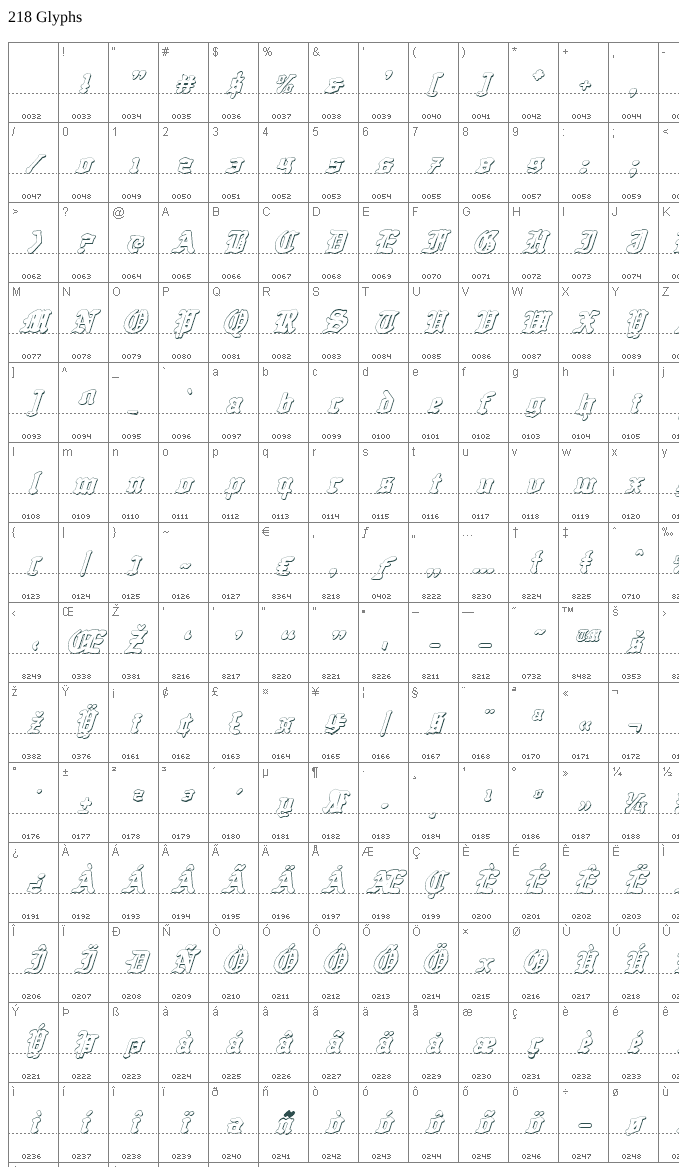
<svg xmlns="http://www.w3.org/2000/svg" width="679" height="1167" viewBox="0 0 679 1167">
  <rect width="100%" height="100%" fill="rgb(255,255,255)"/>
  <text x="8" y="22" font-family="Liberation Serif" font-size="16" fill="rgb(0,0,0)">218 Glyphs</text>
  <image x="8" y="42" width="671" height="1125" href="pic1.png"/>
</svg>
